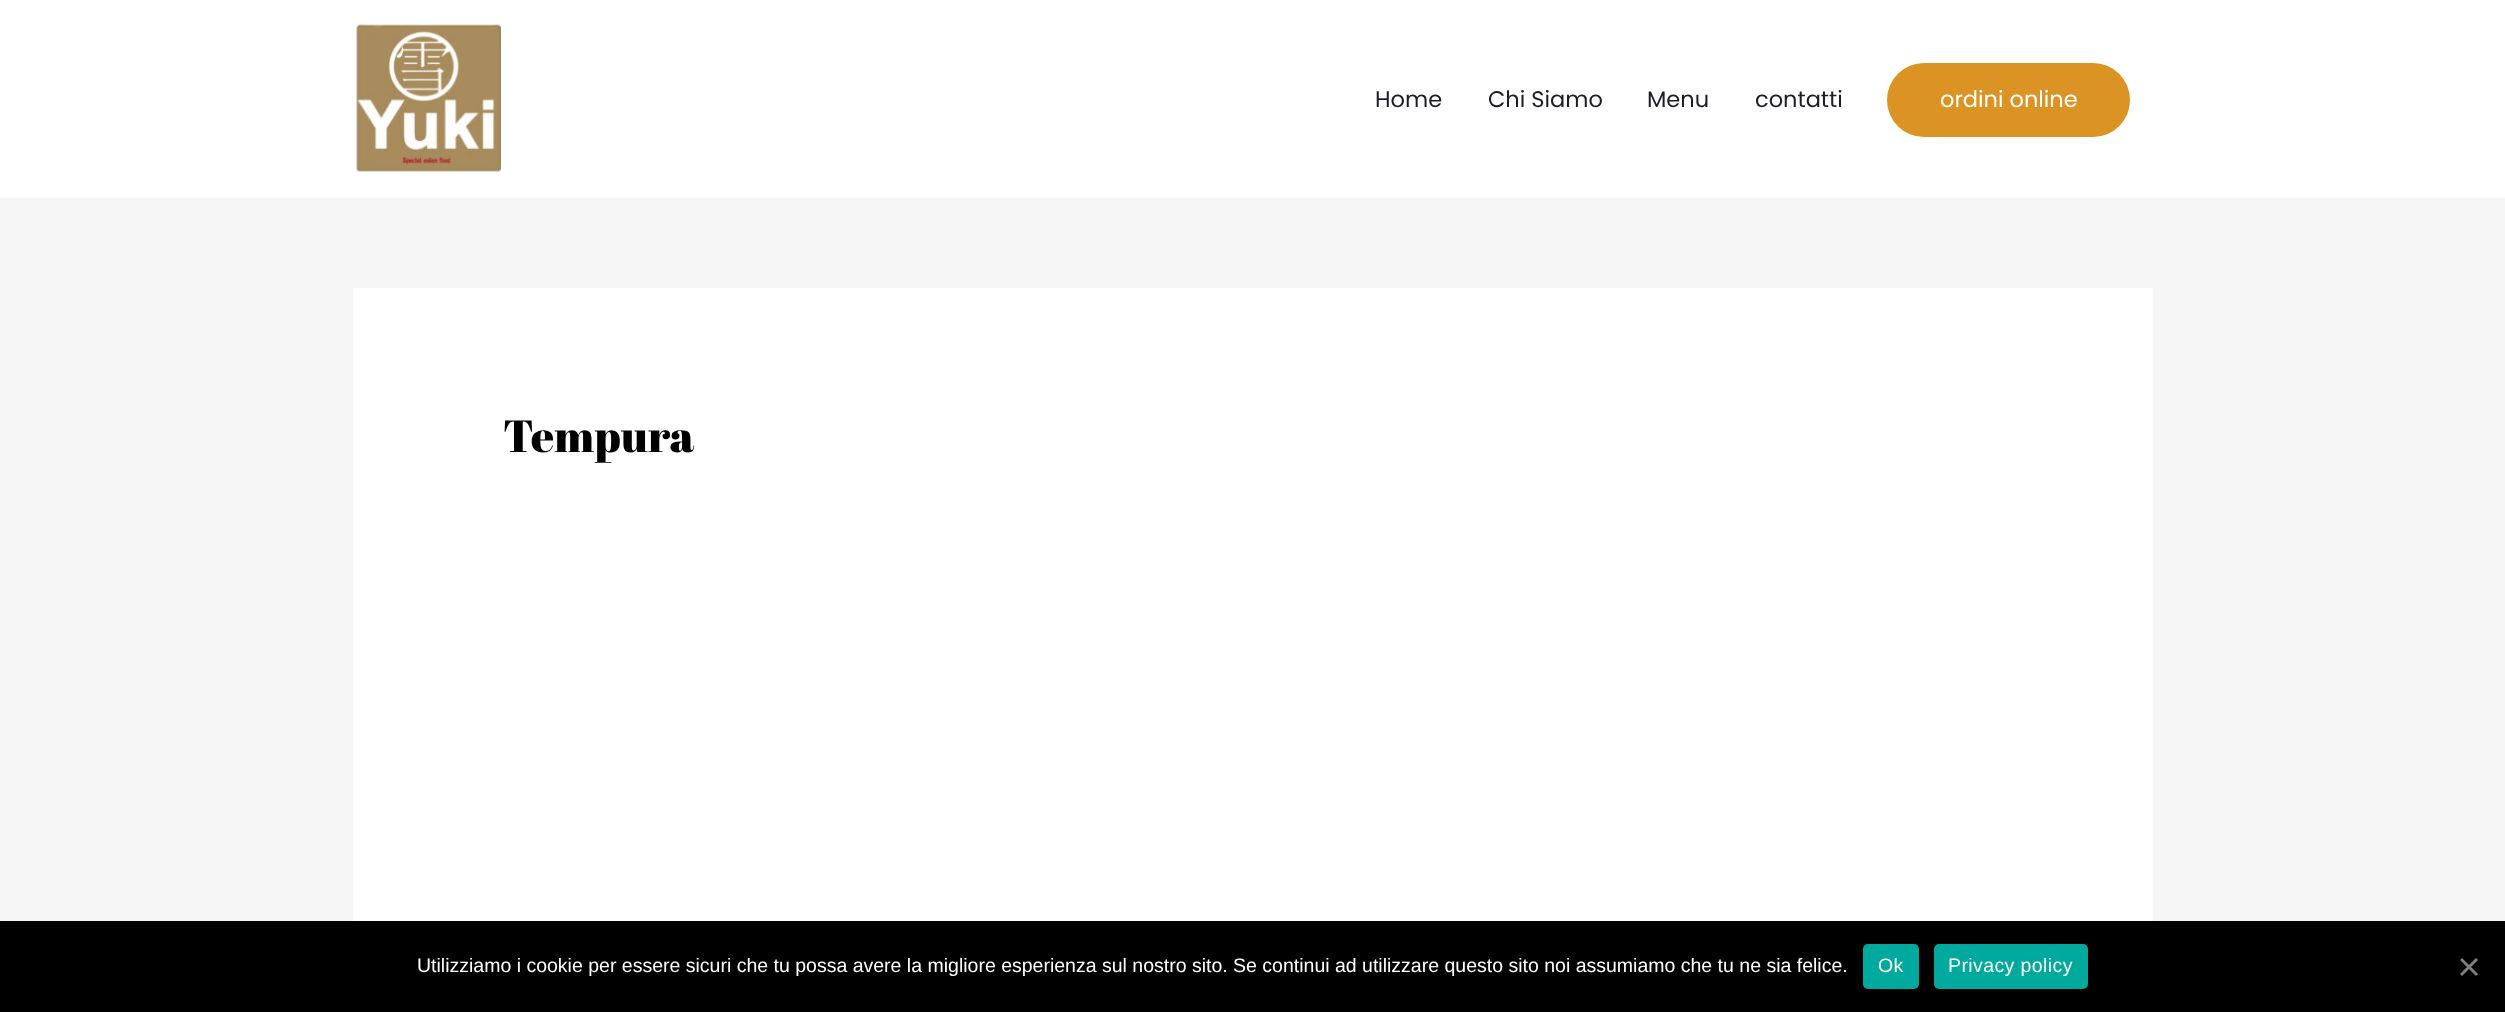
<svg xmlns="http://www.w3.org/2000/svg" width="2505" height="1012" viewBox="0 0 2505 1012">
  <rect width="100%" height="100%" fill="rgb(245,245,245)"/>
  <rect x="0" y="0" width="2505" height="198" fill="rgb(255,255,255)"/>
  <image x="352" y="22" width="149" height="151" href="pic1.png"/>
  <g font-family="Poppins" font-size="22.5" fill="rgb(29,29,35)">
    <text x="1375" y="107">Home</text>
    <text x="1488" y="107">Chi Siamo</text>
    <text x="1647" y="107">Menu</text>
    <text x="1755" y="107">contatti</text>
  </g>
  <rect x="1887" y="63" width="243" height="74" rx="37" fill="rgb(219,148,35)"/>
  <text x="1940" y="107" font-family="Poppins" font-size="22.5" fill="rgb(255,255,255)">ordini online</text>
  <rect x="353" y="288" width="1800" height="633" fill="rgb(255,255,255)"/>
  <text x="503" y="452" font-family="Abril Fatface" font-size="45" fill="rgb(0,0,0)">Tempura</text>
  <rect x="0" y="921" width="2505" height="91" fill="rgb(0,0,0)"/>
  <text x="417" y="972" font-family="Liberation Sans" font-size="19.5" fill="rgb(255,255,255)">Utilizziamo i cookie per essere sicuri che tu possa avere la migliore esperienza sul nostro sito. Se continui ad utilizzare questo sito noi assumiamo che tu ne sia felice.</text>
  <rect x="1863" y="944" width="56" height="45" rx="5" fill="rgb(0,169,157)"/>
  <text x="1878" y="972" font-family="Liberation Sans" font-size="19.5" letter-spacing="0.4" fill="rgb(255,255,255)">Ok</text>
  <rect x="1934" y="944" width="154" height="45" rx="5" fill="rgb(0,169,157)"/>
  <text x="1948" y="972" font-family="Liberation Sans" font-size="19.5" letter-spacing="0.4" fill="rgb(255,255,255)">Privacy policy</text>
  <path d="M2476 958L2478 960L2462 976L2460 974Z" fill="rgb(128,128,128)"/>
  <path d="M2460 960L2462 958L2478 974L2476 976Z" fill="rgb(128,128,128)"/>
</svg>
